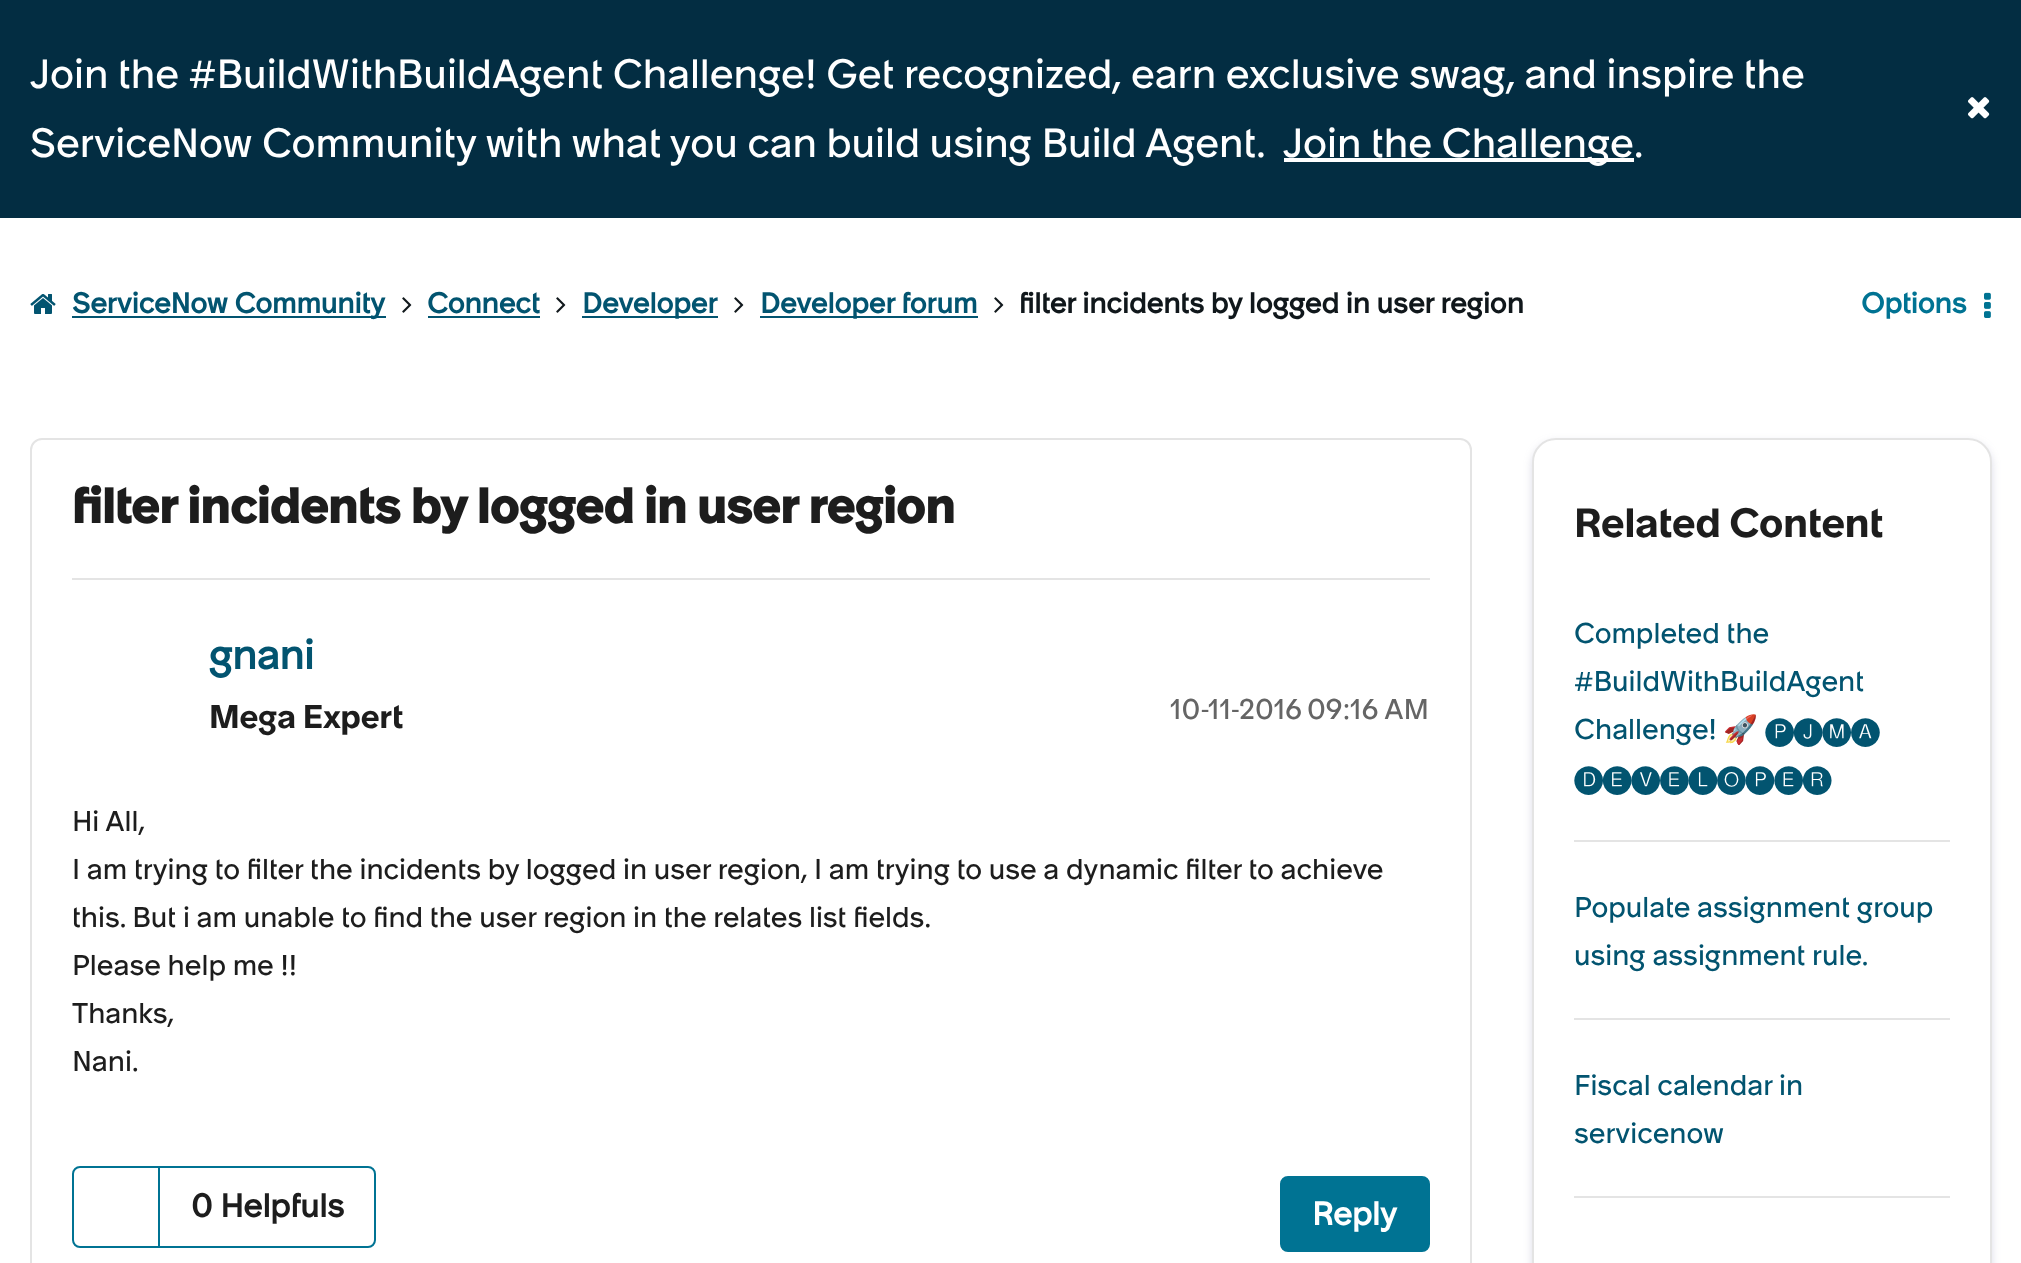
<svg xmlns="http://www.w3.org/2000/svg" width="2021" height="1263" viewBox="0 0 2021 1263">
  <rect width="100%" height="100%" fill="rgb(255,255,255)"/>
  <rect x="0" y="0" width="2021" height="218" fill="rgb(3,45,66)"/>
  <g font-family="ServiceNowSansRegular" font-size="40" fill="rgb(255,255,255)">
    <text>
      <tspan x="30" y="88">Join the #BuildWithBuildAgent Challenge! Get recognized, earn exclusive swag, and inspire the</tspan>
      <tspan x="30" y="157" word-spacing="-0.1">ServiceNow Community with what you can build using Build Agent.</tspan>
    </text>
  </g>
  <rect x="1284" y="158" width="350" height="4" fill="rgb(255,255,255)"/>
  <g font-family="ServiceNowSansRegular" font-size="40" fill="rgb(255,255,255)">
    <text x="1283" y="157">Join the Challenge</text>
    <text x="1634" y="157">.</text>
  </g>
  <image x="1968" y="97" width="22" height="22" href="pic1.png"/>
  <image x="30" y="294" width="26" height="20" href="pic2.png"/>
  <rect x="72" y="316" width="314" height="2" fill="rgb(2,84,112)"/>
  <text x="72" y="313" font-family="ServiceNowSansRegular" font-size="28" font-weight="bold" fill="rgb(2,84,112)">ServiceNow Community</text>
  <image x="402" y="297" width="10" height="16" href="pic3.png"/>
  <text x="427" y="313" font-family="ServiceNowSansRegular" font-size="28" font-weight="bold" fill="rgb(2,84,112)">Connect</text>
  <rect x="428" y="316" width="112" height="2" fill="rgb(2,84,112)"/>
  <image x="556" y="297" width="10" height="16" href="pic3.png"/>
  <rect x="582" y="316" width="136" height="2" fill="rgb(2,84,112)"/>
  <text x="582" y="313" font-family="ServiceNowSansRegular" font-size="28" font-weight="bold" fill="rgb(2,84,112)">Developer</text>
  <image x="734" y="297" width="10" height="16" href="pic3.png"/>
  <rect x="760" y="316" width="218" height="2" fill="rgb(2,84,112)"/>
  <text x="760" y="313" font-family="ServiceNowSansRegular" font-size="28" font-weight="bold" fill="rgb(2,84,112)">Developer forum</text>
  <image x="994" y="297" width="10" height="16" href="pic3.png"/>
  <text x="1019" y="313" font-family="ServiceNowSansRegular" font-size="28" font-weight="bold" fill="rgb(16,23,27)">filter incidents by logged in user region</text>
  <text x="1861" y="313" font-family="ServiceNowSansRegular" font-size="28" font-weight="bold" fill="rgb(0,115,147)">Options</text>
  <image x="1984" y="292" width="7" height="26" href="pic4.png"/>
  <rect x="31" y="439" width="1440" height="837" rx="11" fill="none" stroke="rgb(228,228,228)" stroke-width="2"/>
  <rect x="72" y="578" width="1358" height="2" fill="rgb(228,228,228)"/>
  <text x="72" y="523" font-family="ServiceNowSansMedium" font-size="48" font-weight="bold" fill="rgb(29,29,29)">filter incidents by logged in user region</text>
  <text x="209" y="669" font-family="ServiceNowSansRegular" font-size="40" font-weight="bold" fill="rgb(2,84,112)">gnani</text>
  <text x="209" y="728" font-family="ServiceNowSansMedium" font-size="32" font-weight="500" fill="rgb(29,29,29)">Mega Expert</text>
  <g font-family="ServiceNowSansRegular" font-size="28" fill="rgb(101,101,101)">
    <text x="1170" y="719">10-11-2016</text>
    <text x="1307" y="719">09:16 AM</text>
  </g>
  <g font-family="ServiceNowSansRegular" font-size="28" fill="rgb(29,29,29)">
    <text>
      <tspan x="72" y="831">Hi All,</tspan>
      <tspan x="72" y="879">I am trying to filter the incidents by logged in user region, I am trying to use a dynamic filter to achieve</tspan>
      <tspan x="72" y="927">this. But i am unable to find the user region in the relates list fields.</tspan>
      <tspan x="72" y="975">Please help me !!</tspan>
      <tspan x="72" y="1023">Thanks,</tspan>
      <tspan x="72" y="1071">Nani.</tspan>
    </text>
  </g>
  <rect x="73" y="1167" width="302" height="80" rx="7" fill="none" stroke="rgb(0,115,147)" stroke-width="2"/>
  <rect x="158" y="1168" width="2" height="78" fill="rgb(0,115,147)"/>
  <text x="191" y="1217" font-family="ServiceNowSansRegular" font-size="32" font-weight="bold" fill="rgb(29,29,29)">0 Helpfuls</text>
  <rect x="1281" y="1177" width="148" height="74" rx="7" fill="rgb(0,115,147)" stroke="rgb(0,115,147)" stroke-width="2"/>
  <text x="1312" y="1225" font-family="ServiceNowSansRegular" font-size="32" font-weight="bold" fill="rgb(255,255,255)">Reply</text>
  <rect x="1532" y="442" width="460" height="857" rx="24" fill="rgba(113,113,161,0.25)" filter="blur(4px)"/>
  <rect x="1533" y="439" width="458" height="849" rx="23" fill="rgb(255,255,255)" stroke="rgb(228,228,228)" stroke-width="2"/>
  <text x="1574" y="537" font-family="ServiceNowSansMedium" font-size="40" font-weight="500" fill="rgb(29,29,29)">Related Content</text>
  <rect x="1574" y="840" width="376" height="2" fill="rgb(228,228,228)"/>
  <g font-family="ServiceNowSansRegular" font-size="28" fill="rgb(2,84,112)">
    <text>
      <tspan x="1574" y="643">Completed the</tspan>
      <tspan x="1574" y="691">#BuildWithBuildAgent</tspan>
      <tspan x="1574" y="739">Challenge!</tspan>
    </text>
  </g>
  <text x="1723" y="739" font-family="Noto Color Emoji" font-size="28" font-weight="bold" fill="rgb(2,84,112)">🚀</text>
  <g font-family="FreeSans" font-size="28" font-weight="bold" fill="rgb(2,84,112)">
    <text x="1765" y="739">🅟🅙🅜🅐</text>
    <text x="1574" y="787">🅓🅔🅥🅔🅛🅞🅟🅔🅡</text>
  </g>
  <rect x="1574" y="1018" width="376" height="2" fill="rgb(228,228,228)"/>
  <g font-family="ServiceNowSansRegular" font-size="28" fill="rgb(2,84,112)">
    <text>
      <tspan x="1574" y="917">Populate assignment group</tspan>
      <tspan x="1574" y="965">using assignment rule.</tspan>
    </text>
  </g>
  <rect x="1574" y="1196" width="376" height="2" fill="rgb(228,228,228)"/>
  <g font-family="ServiceNowSansRegular" font-size="28" fill="rgb(2,84,112)">
    <text>
      <tspan x="1574" y="1095">Fiscal calendar in</tspan>
      <tspan x="1574" y="1143">servicenow</tspan>
    </text>
  </g>
</svg>
